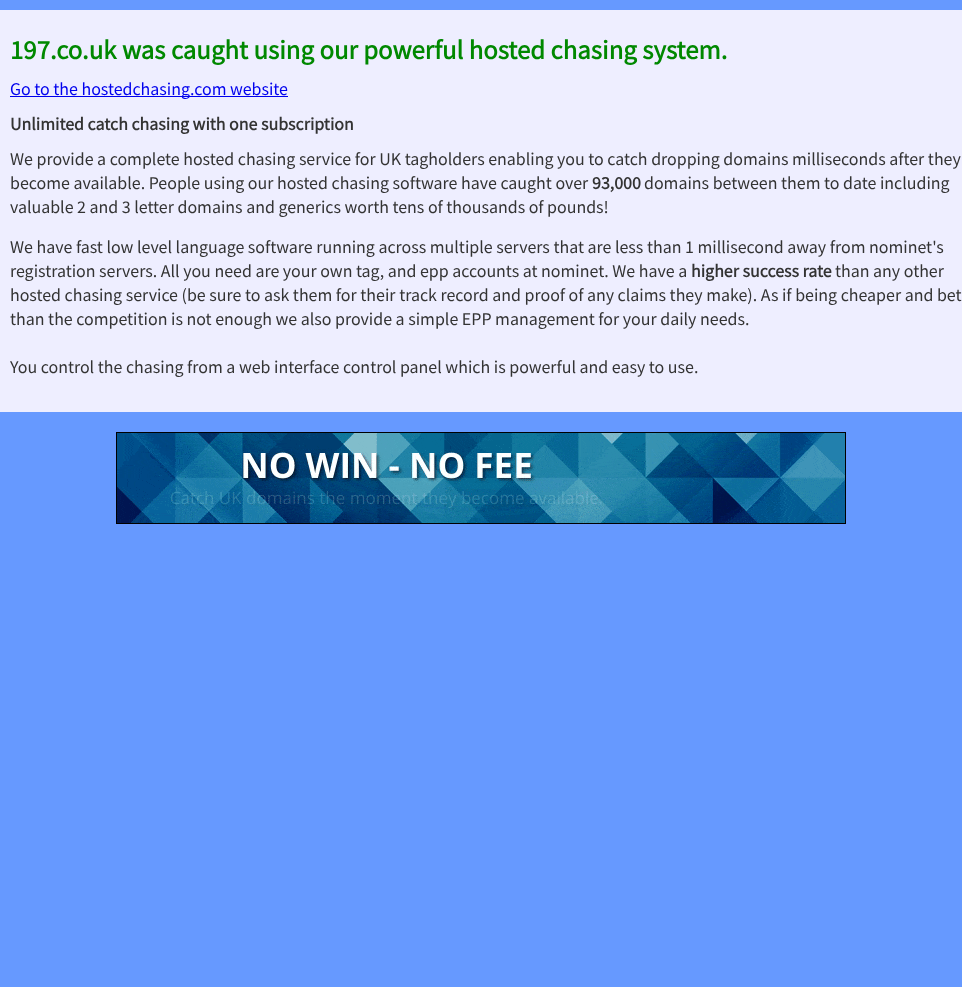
<svg xmlns="http://www.w3.org/2000/svg" width="962" height="987" viewBox="0 0 962 987">
  <rect width="100%" height="100%" fill="rgb(102,153,255)"/>
  <rect x="0" y="10" width="962" height="402" fill="rgb(238,238,255)"/>
  <text x="10" y="59" font-family="Noto Sans TC" font-size="24" font-weight="bold" fill="rgb(0,136,0)">197.co.uk was caught using our powerful hosted chasing system.</text>
  <rect x="10" y="96" width="278" height="1" fill="rgb(0,0,238)"/>
  <text x="10" y="95" font-family="Noto Sans TC" font-size="16" font-weight="100" fill="rgb(0,0,238)">Go to the hostedchasing.com website</text>
  <text x="10" y="130" font-family="Noto Sans TC" font-size="16" font-weight="bold" fill="rgb(51,51,51)">Unlimited catch chasing with one subscription</text>
  <g font-family="Noto Sans TC" font-size="16" font-weight="100" fill="rgb(51,51,51)">
    <text>
      <tspan x="10" y="165">We provide a complete hosted chasing service for UK tagholders enabling you to catch dropping domains milliseconds after they</tspan>
      <tspan x="10" y="189">become available. People using our hosted chasing software have caught over</tspan>
    </text>
  </g>
  <text x="592" y="189" font-family="Noto Sans TC" font-size="16" font-weight="bold" fill="rgb(51,51,51)">93,000</text>
  <g font-family="Noto Sans TC" font-size="16" font-weight="100" fill="rgb(51,51,51)">
    <text x="644" y="189">domains between them to date including</text>
    <text x="10" y="213">valuable 2 and 3 letter domains and generics worth tens of thousands of pounds!</text>
    <text>
      <tspan x="10" y="253">We have fast low level language software running across multiple servers that are less than 1 millisecond away from nominet's</tspan>
      <tspan x="10" y="277">registration servers. All you need are your own tag, and epp accounts at nominet. We have a</tspan>
    </text>
  </g>
  <text x="691" y="277" font-family="Noto Sans TC" font-size="16" font-weight="bold" fill="rgb(51,51,51)">higher success rate</text>
  <g font-family="Noto Sans TC" font-size="16" font-weight="100" fill="rgb(51,51,51)">
    <text x="835" y="277">than any other</text>
    <text>
      <tspan x="10" y="301">hosted chasing service (be sure to ask them for their track record and proof of any claims they make). As if being cheaper and bet</tspan>
      <tspan x="10" y="325">than the competition is not enough we also provide a simple EPP management for your daily needs.</tspan>
    </text>
    <text x="10" y="373">You control the chasing from a web interface control panel which is powerful and easy to use.</text>
  </g>
  <rect x="116.5" y="432.5" width="729" height="91" fill="none" stroke="rgb(0,0,0)"/>
  <image x="117" y="433" width="728" height="90" href="pic1.png"/>
</svg>
